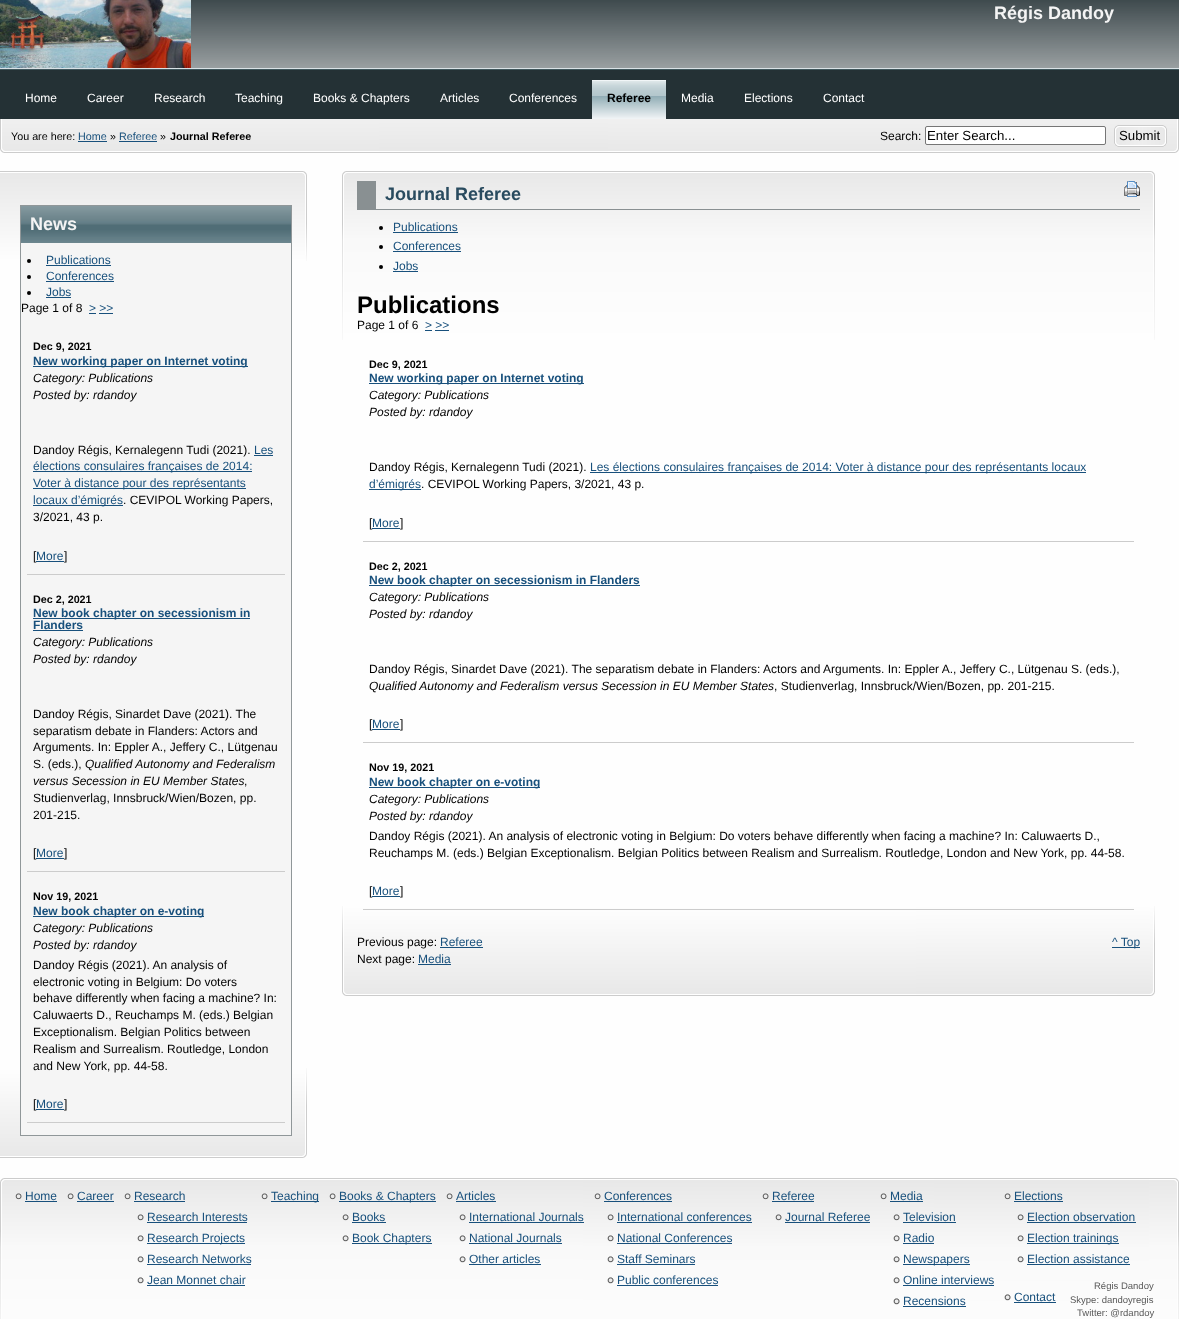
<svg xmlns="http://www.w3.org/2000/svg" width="1179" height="1319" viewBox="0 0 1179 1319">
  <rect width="100%" height="100%" fill="rgb(254,254,254)"/>
  <image x="191" y="0" width="988" height="68" href="pic1.png"/>
  <rect x="0" y="68" width="1179" height="1" fill="rgb(217,226,230)"/>
  <image x="0" y="0" width="191" height="68" href="pic2.png"/>
  <text x="994" y="19" font-family="Liberation Sans" font-size="18" font-weight="bold" fill="rgb(244,244,244)">Régis Dandoy</text>
  <rect x="0" y="70" width="1179" height="49" fill="rgb(36,49,53)"/>
  <rect x="0" y="69" width="1179" height="1" fill="rgb(63,86,92)"/>
  <g font-family="Liberation Sans" font-size="12" fill="rgb(255,255,255)">
    <text x="25" y="102">Home</text>
    <text x="87" y="102">Career</text>
    <text x="154" y="102">Research</text>
    <text x="235" y="102">Teaching</text>
    <text x="313" y="102">Books &amp; Chapters</text>
    <text x="440" y="102">Articles</text>
    <text x="509" y="102">Conferences</text>
  </g>
  <image x="592" y="80" width="74" height="39" href="pic3.png"/>
  <text x="607" y="102" font-family="Liberation Sans" font-size="12" font-weight="bold" fill="rgb(0,0,0)">Referee</text>
  <g font-family="Liberation Sans" font-size="12" fill="rgb(255,255,255)">
    <text x="681" y="102">Media</text>
    <text x="744" y="102">Elections</text>
    <text x="823" y="102">Contact</text>
  </g>
  <image x="379" y="119" width="800" height="34" href="pic4.png"/>
  <image x="0" y="119" width="379" height="34" href="pic5.png"/>
  <text x="11" y="140" font-family="Liberation Sans" font-size="10.75" fill="rgb(0,0,0)">You are here:</text>
  <text x="78" y="140" font-family="Liberation Sans" font-size="10.75" fill="rgb(24,80,124)">Home</text>
  <rect x="78" y="141" width="29" height="1" fill="rgb(24,80,124)"/>
  <text x="110" y="140" font-family="Liberation Sans" font-size="10.75" fill="rgb(0,0,0)">»</text>
  <text x="119" y="140" font-family="Liberation Sans" font-size="10.75" fill="rgb(24,80,124)">Referee</text>
  <rect x="119" y="141" width="38" height="1" fill="rgb(24,80,124)"/>
  <text x="160" y="140" font-family="Liberation Sans" font-size="10.75" fill="rgb(0,0,0)">»</text>
  <text x="170" y="140" font-family="Liberation Sans" font-size="10.75" font-weight="bold" fill="rgb(0,0,0)">Journal Referee</text>
  <text x="880" y="140" font-family="Liberation Sans" font-size="12" fill="rgb(0,0,0)">Search:</text>
  <rect x="925.5" y="126.5" width="180" height="18" rx="1.5" fill="rgb(255,255,255)" stroke="rgb(118,118,118)"/>
  <text x="927" y="140" font-family="Liberation Sans" font-size="13.25" fill="rgb(0,0,0)">Enter Search...</text>
  <image x="1114" y="125" width="53" height="22" href="pic6.png"/>
  <text x="1119" y="140" font-family="Liberation Sans" font-size="13.25" fill="rgb(0,0,0)">Submit</text>
  <image x="0" y="171" width="307" height="90" href="pic7.png"/>
  <image x="0" y="1068" width="307" height="90" href="pic8.png"/>
  <rect x="21" y="243" width="270" height="892" fill="rgb(245,245,245)"/>
  <rect x="20.5" y="205.5" width="271" height="930" fill="none" stroke="rgb(144,151,153)"/>
  <image x="21" y="206" width="270" height="37" href="pic9.png"/>
  <text x="30" y="230" font-family="Liberation Sans" font-size="18" font-weight="bold" fill="rgb(244,244,244)">News</text>
  <circle cx="29" cy="261" r="2" fill="rgb(0,0,0)"/>
  <text x="46" y="264" font-family="Liberation Sans" font-size="12" fill="rgb(24,80,124)">Publications</text>
  <rect x="46" y="265" width="65" height="1" fill="rgb(24,80,124)"/>
  <circle cx="29" cy="277" r="2" fill="rgb(0,0,0)"/>
  <text x="46" y="280" font-family="Liberation Sans" font-size="12" fill="rgb(24,80,124)">Conferences</text>
  <rect x="46" y="281" width="68" height="1" fill="rgb(24,80,124)"/>
  <circle cx="29" cy="293" r="2" fill="rgb(0,0,0)"/>
  <text x="46" y="296" font-family="Liberation Sans" font-size="12" fill="rgb(24,80,124)">Jobs</text>
  <rect x="46" y="297" width="25" height="1" fill="rgb(24,80,124)"/>
  <text x="21" y="312" font-family="Liberation Sans" font-size="12" fill="rgb(0,0,0)">Page 1 of 8</text>
  <text x="89" y="312" font-family="Liberation Sans" font-size="12" fill="rgb(24,80,124)">&gt; &gt;&gt;</text>
  <rect x="89" y="313" width="7" height="1" fill="rgb(24,80,124)"/>
  <rect x="99" y="313" width="14" height="1" fill="rgb(24,80,124)"/>
  <rect x="27" y="574" width="258" height="1" fill="rgb(204,204,204)"/>
  <text x="33" y="350" font-family="Liberation Sans" font-size="10.75" font-weight="bold" fill="rgb(0,0,0)">Dec 9, 2021</text>
  <rect x="33" y="366" width="215" height="1" fill="rgb(24,80,124)"/>
  <text x="33" y="365" font-family="Liberation Sans" font-size="12" font-weight="bold" fill="rgb(24,80,124)">New working paper on Internet voting</text>
  <g font-family="Liberation Sans" font-size="12" font-style="italic" fill="rgb(0,0,0)">
    <text>
      <tspan x="33" y="382">Category: Publications</tspan>
      <tspan x="33" y="399">Posted by: rdandoy</tspan>
    </text>
  </g>
  <text x="33" y="454" font-family="Liberation Sans" font-size="12" fill="rgb(0,0,0)">Dandoy Régis, Kernalegenn Tudi (2021).</text>
  <text x="254" y="454" font-family="Liberation Sans" font-size="12" fill="rgb(24,80,124)">Les</text>
  <rect x="254" y="455" width="19" height="1" fill="rgb(24,80,124)"/>
  <rect x="33" y="471" width="219" height="1" fill="rgb(24,80,124)"/>
  <text x="33" y="470" font-family="Liberation Sans" font-size="12" fill="rgb(24,80,124)">élections consulaires françaises de 2014:</text>
  <rect x="33" y="488" width="213" height="1" fill="rgb(24,80,124)"/>
  <text x="33" y="487" font-family="Liberation Sans" font-size="12" fill="rgb(24,80,124)">Voter à distance pour des représentants</text>
  <rect x="33" y="505" width="90" height="1" fill="rgb(24,80,124)"/>
  <text x="33" y="504" font-family="Liberation Sans" font-size="12" fill="rgb(24,80,124)">locaux d’émigrés</text>
  <g font-family="Liberation Sans" font-size="12" fill="rgb(0,0,0)">
    <text x="123" y="504">. CEVIPOL Working Papers,</text>
    <text x="33" y="521">3/2021, 43 p.</text>
    <text x="33" y="560">[</text>
  </g>
  <text x="36" y="560" font-family="Liberation Sans" font-size="12" fill="rgb(24,80,124)">More</text>
  <rect x="36" y="561" width="28" height="1" fill="rgb(24,80,124)"/>
  <text x="64" y="560" font-family="Liberation Sans" font-size="12" fill="rgb(0,0,0)">]</text>
  <rect x="27" y="871" width="258" height="1" fill="rgb(204,204,204)"/>
  <text x="33" y="603" font-family="Liberation Sans" font-size="10.75" font-weight="bold" fill="rgb(0,0,0)">Dec 2, 2021</text>
  <rect x="33" y="618" width="217" height="1" fill="rgb(24,80,124)"/>
  <g font-family="Liberation Sans" font-size="12" font-weight="bold" fill="rgb(24,80,124)">
    <text>
      <tspan x="33" y="617">New book chapter on secessionism in</tspan>
      <tspan x="33" y="629">Flanders</tspan>
    </text>
  </g>
  <rect x="33" y="630" width="50" height="1" fill="rgb(24,80,124)"/>
  <g font-family="Liberation Sans" font-size="12" font-style="italic" fill="rgb(0,0,0)">
    <text>
      <tspan x="33" y="646">Category: Publications</tspan>
      <tspan x="33" y="663">Posted by: rdandoy</tspan>
    </text>
  </g>
  <g font-family="Liberation Sans" font-size="12" fill="rgb(0,0,0)">
    <text>
      <tspan x="33" y="718">Dandoy Régis, Sinardet Dave (2021). The</tspan>
      <tspan x="33" y="735">separatism debate in Flanders: Actors and</tspan>
      <tspan x="33" y="751">Arguments. In: Eppler A., Jeffery C., Lütgenau</tspan>
      <tspan x="33" y="768">S. (eds.),</tspan>
    </text>
  </g>
  <g font-family="Liberation Sans" font-size="12" font-style="italic" fill="rgb(0,0,0)">
    <text x="85" y="768">Qualified Autonomy and Federalism</text>
    <text x="33" y="785">versus Secession in EU Member States</text>
  </g>
  <g font-family="Liberation Sans" font-size="12" fill="rgb(0,0,0)">
    <text x="244" y="785">,</text>
    <text>
      <tspan x="33" y="802">Studienverlag, Innsbruck/Wien/Bozen, pp.</tspan>
      <tspan x="33" y="819">201-215.</tspan>
    </text>
    <text x="33" y="857">[</text>
  </g>
  <text x="36" y="857" font-family="Liberation Sans" font-size="12" fill="rgb(24,80,124)">More</text>
  <rect x="36" y="858" width="28" height="1" fill="rgb(24,80,124)"/>
  <text x="64" y="857" font-family="Liberation Sans" font-size="12" fill="rgb(0,0,0)">]</text>
  <rect x="27" y="1122" width="258" height="1" fill="rgb(204,204,204)"/>
  <text x="33" y="900" font-family="Liberation Sans" font-size="10.75" font-weight="bold" fill="rgb(0,0,0)">Nov 19, 2021</text>
  <rect x="33" y="916" width="171" height="1" fill="rgb(24,80,124)"/>
  <text x="33" y="915" font-family="Liberation Sans" font-size="12" font-weight="bold" fill="rgb(24,80,124)">New book chapter on e-voting</text>
  <g font-family="Liberation Sans" font-size="12" font-style="italic" fill="rgb(0,0,0)">
    <text>
      <tspan x="33" y="932">Category: Publications</tspan>
      <tspan x="33" y="949">Posted by: rdandoy</tspan>
    </text>
  </g>
  <g font-family="Liberation Sans" font-size="12" fill="rgb(0,0,0)">
    <text>
      <tspan x="33" y="969">Dandoy Régis (2021). An analysis of</tspan>
      <tspan x="33" y="986">electronic voting in Belgium: Do voters</tspan>
      <tspan x="33" y="1002">behave differently when facing a machine? In:</tspan>
      <tspan x="33" y="1019">Caluwaerts D., Reuchamps M. (eds.) Belgian</tspan>
      <tspan x="33" y="1036">Exceptionalism. Belgian Politics between</tspan>
      <tspan x="33" y="1053">Realism and Surrealism. Routledge, London</tspan>
      <tspan x="33" y="1070">and New York, pp. 44-58.</tspan>
    </text>
    <text x="33" y="1108">[</text>
  </g>
  <text x="36" y="1108" font-family="Liberation Sans" font-size="12" fill="rgb(24,80,124)">More</text>
  <rect x="36" y="1109" width="28" height="1" fill="rgb(24,80,124)"/>
  <text x="64" y="1108" font-family="Liberation Sans" font-size="12" fill="rgb(0,0,0)">]</text>
  <image x="558" y="171" width="597" height="169" href="pic10.png"/>
  <image x="342" y="171" width="216" height="169" href="pic11.png"/>
  <image x="342" y="906" width="808" height="90" href="pic12.png"/>
  <image x="1150" y="906" width="5" height="90" href="pic13.png"/>
  <rect x="376" y="209" width="764" height="1" fill="rgb(137,144,146)"/>
  <rect x="357" y="181" width="19" height="29" fill="rgb(137,144,146)"/>
  <text x="385" y="200" font-family="Liberation Sans" font-size="18" font-weight="bold" fill="rgb(41,75,95)">Journal Referee</text>
  <image x="1124" y="181" width="16" height="16" href="pic14.png"/>
  <circle cx="381" cy="228" r="2" fill="rgb(0,0,0)"/>
  <text x="393" y="231" font-family="Liberation Sans" font-size="12" fill="rgb(24,80,124)">Publications</text>
  <rect x="393" y="232" width="65" height="1" fill="rgb(24,80,124)"/>
  <circle cx="381" cy="247" r="2" fill="rgb(0,0,0)"/>
  <text x="393" y="250" font-family="Liberation Sans" font-size="12" fill="rgb(24,80,124)">Conferences</text>
  <rect x="393" y="251" width="68" height="1" fill="rgb(24,80,124)"/>
  <circle cx="381" cy="267" r="2" fill="rgb(0,0,0)"/>
  <text x="393" y="270" font-family="Liberation Sans" font-size="12" fill="rgb(24,80,124)">Jobs</text>
  <rect x="393" y="271" width="25" height="1" fill="rgb(24,80,124)"/>
  <text x="357" y="313" font-family="Liberation Sans" font-size="24" font-weight="bold" fill="rgb(0,0,0)">Publications</text>
  <text x="357" y="329" font-family="Liberation Sans" font-size="12" fill="rgb(0,0,0)">Page 1 of 6</text>
  <text x="425" y="329" font-family="Liberation Sans" font-size="12" fill="rgb(24,80,124)">&gt; &gt;&gt;</text>
  <rect x="425" y="330" width="7" height="1" fill="rgb(24,80,124)"/>
  <rect x="435" y="330" width="14" height="1" fill="rgb(24,80,124)"/>
  <rect x="363" y="541" width="771" height="1" fill="rgb(204,204,204)"/>
  <text x="369" y="368" font-family="Liberation Sans" font-size="10.75" font-weight="bold" fill="rgb(0,0,0)">Dec 9, 2021</text>
  <rect x="369" y="383" width="215" height="1" fill="rgb(24,80,124)"/>
  <text x="369" y="382" font-family="Liberation Sans" font-size="12" font-weight="bold" fill="rgb(24,80,124)">New working paper on Internet voting</text>
  <g font-family="Liberation Sans" font-size="12" font-style="italic" fill="rgb(0,0,0)">
    <text>
      <tspan x="369" y="399">Category: Publications</tspan>
      <tspan x="369" y="416">Posted by: rdandoy</tspan>
    </text>
  </g>
  <text x="369" y="471" font-family="Liberation Sans" font-size="12" fill="rgb(0,0,0)">Dandoy Régis, Kernalegenn Tudi (2021).</text>
  <rect x="590" y="472" width="496" height="1" fill="rgb(24,80,124)"/>
  <text x="590" y="471" font-family="Liberation Sans" font-size="12" fill="rgb(24,80,124)">Les élections consulaires françaises de 2014: Voter à distance pour des représentants locaux</text>
  <rect x="369" y="489" width="52" height="1" fill="rgb(24,80,124)"/>
  <text x="369" y="488" font-family="Liberation Sans" font-size="12" fill="rgb(24,80,124)">d’émigrés</text>
  <g font-family="Liberation Sans" font-size="12" fill="rgb(0,0,0)">
    <text x="421" y="488">. CEVIPOL Working Papers, 3/2021, 43 p.</text>
    <text x="369" y="527">[</text>
  </g>
  <text x="372" y="527" font-family="Liberation Sans" font-size="12" fill="rgb(24,80,124)">More</text>
  <rect x="372" y="528" width="28" height="1" fill="rgb(24,80,124)"/>
  <text x="400" y="527" font-family="Liberation Sans" font-size="12" fill="rgb(0,0,0)">]</text>
  <rect x="363" y="742" width="771" height="1" fill="rgb(204,204,204)"/>
  <text x="369" y="570" font-family="Liberation Sans" font-size="10.75" font-weight="bold" fill="rgb(0,0,0)">Dec 2, 2021</text>
  <rect x="369" y="585" width="271" height="1" fill="rgb(24,80,124)"/>
  <text x="369" y="584" font-family="Liberation Sans" font-size="12" font-weight="bold" fill="rgb(24,80,124)">New book chapter on secessionism in Flanders</text>
  <g font-family="Liberation Sans" font-size="12" font-style="italic" fill="rgb(0,0,0)">
    <text>
      <tspan x="369" y="601">Category: Publications</tspan>
      <tspan x="369" y="618">Posted by: rdandoy</tspan>
    </text>
  </g>
  <text x="369" y="673" font-family="Liberation Sans" font-size="12" fill="rgb(0,0,0)">Dandoy Régis, Sinardet Dave (2021). The separatism debate in Flanders: Actors and Arguments. In: Eppler A., Jeffery C., Lütgenau S. (eds.),</text>
  <text x="369" y="690" font-family="Liberation Sans" font-size="12" font-style="italic" fill="rgb(0,0,0)">Qualified Autonomy and Federalism versus Secession in EU Member States</text>
  <g font-family="Liberation Sans" font-size="12" fill="rgb(0,0,0)">
    <text x="774" y="690">, Studienverlag, Innsbruck/Wien/Bozen, pp. 201-215.</text>
    <text x="369" y="728">[</text>
  </g>
  <text x="372" y="728" font-family="Liberation Sans" font-size="12" fill="rgb(24,80,124)">More</text>
  <rect x="372" y="729" width="28" height="1" fill="rgb(24,80,124)"/>
  <text x="400" y="728" font-family="Liberation Sans" font-size="12" fill="rgb(0,0,0)">]</text>
  <rect x="363" y="909" width="771" height="1" fill="rgb(204,204,204)"/>
  <text x="369" y="771" font-family="Liberation Sans" font-size="10.75" font-weight="bold" fill="rgb(0,0,0)">Nov 19, 2021</text>
  <rect x="369" y="787" width="171" height="1" fill="rgb(24,80,124)"/>
  <text x="369" y="786" font-family="Liberation Sans" font-size="12" font-weight="bold" fill="rgb(24,80,124)">New book chapter on e-voting</text>
  <g font-family="Liberation Sans" font-size="12" font-style="italic" fill="rgb(0,0,0)">
    <text>
      <tspan x="369" y="803">Category: Publications</tspan>
      <tspan x="369" y="820">Posted by: rdandoy</tspan>
    </text>
  </g>
  <g font-family="Liberation Sans" font-size="12" fill="rgb(0,0,0)">
    <text>
      <tspan x="369" y="840">Dandoy Régis (2021). An analysis of electronic voting in Belgium: Do voters behave differently when facing a machine? In: Caluwaerts D.,</tspan>
      <tspan x="369" y="857">Reuchamps M. (eds.) Belgian Exceptionalism. Belgian Politics between Realism and Surrealism. Routledge, London and New York, pp. 44-58.</tspan>
    </text>
    <text x="369" y="895">[</text>
  </g>
  <text x="372" y="895" font-family="Liberation Sans" font-size="12" fill="rgb(24,80,124)">More</text>
  <rect x="372" y="896" width="28" height="1" fill="rgb(24,80,124)"/>
  <g font-family="Liberation Sans" font-size="12" fill="rgb(0,0,0)">
    <text x="400" y="895">]</text>
    <text x="357" y="946">Previous page:</text>
  </g>
  <text x="440" y="946" font-family="Liberation Sans" font-size="12" fill="rgb(24,80,124)">Referee</text>
  <rect x="440" y="947" width="43" height="1" fill="rgb(24,80,124)"/>
  <text x="357" y="963" font-family="Liberation Sans" font-size="12" fill="rgb(0,0,0)">Next page:</text>
  <text x="418" y="963" font-family="Liberation Sans" font-size="12" fill="rgb(24,80,124)">Media</text>
  <rect x="418" y="964" width="33" height="1" fill="rgb(24,80,124)"/>
  <rect x="1112" y="947" width="28" height="1" fill="rgb(24,80,124)"/>
  <text x="1112" y="946" font-family="Liberation Sans" font-size="12" fill="rgb(24,80,124)">^ Top</text>
  <image x="1149" y="1178" width="30" height="141" href="pic15.png"/>
  <image x="0" y="1178" width="1149" height="141" href="pic16.png"/>
  <image x="15" y="1193" width="7" height="7" href="pic17.png"/>
  <text x="25" y="1200" font-family="Liberation Sans" font-size="12" fill="rgb(24,80,124)">Home</text>
  <rect x="25" y="1201" width="32" height="1" fill="rgb(24,80,124)"/>
  <image x="67" y="1193" width="7" height="7" href="pic17.png"/>
  <text x="77" y="1200" font-family="Liberation Sans" font-size="12" fill="rgb(24,80,124)">Career</text>
  <rect x="77" y="1201" width="37" height="1" fill="rgb(24,80,124)"/>
  <image x="124" y="1193" width="7" height="7" href="pic17.png"/>
  <text x="134" y="1200" font-family="Liberation Sans" font-size="12" fill="rgb(24,80,124)">Research</text>
  <rect x="134" y="1201" width="51" height="1" fill="rgb(24,80,124)"/>
  <image x="137" y="1214" width="7" height="7" href="pic18.png"/>
  <text x="147" y="1221" font-family="Liberation Sans" font-size="12" fill="rgb(24,80,124)">Research Interests</text>
  <rect x="147" y="1222" width="100" height="1" fill="rgb(24,80,124)"/>
  <image x="137" y="1235" width="7" height="7" href="pic19.png"/>
  <rect x="147" y="1243" width="98" height="1" fill="rgb(24,80,124)"/>
  <text x="147" y="1242" font-family="Liberation Sans" font-size="12" fill="rgb(24,80,124)">Research Projects</text>
  <image x="137" y="1256" width="7" height="7" href="pic20.png"/>
  <text x="147" y="1263" font-family="Liberation Sans" font-size="12" fill="rgb(24,80,124)">Research Networks</text>
  <rect x="147" y="1264" width="104" height="1" fill="rgb(24,80,124)"/>
  <image x="137" y="1277" width="7" height="7" href="pic21.png"/>
  <text x="147" y="1284" font-family="Liberation Sans" font-size="12" fill="rgb(24,80,124)">Jean Monnet chair</text>
  <rect x="147" y="1285" width="98" height="1" fill="rgb(24,80,124)"/>
  <image x="261" y="1193" width="7" height="7" href="pic17.png"/>
  <rect x="271" y="1201" width="48" height="1" fill="rgb(24,80,124)"/>
  <text x="271" y="1200" font-family="Liberation Sans" font-size="12" fill="rgb(24,80,124)">Teaching</text>
  <image x="329" y="1193" width="7" height="7" href="pic17.png"/>
  <rect x="339" y="1201" width="97" height="1" fill="rgb(24,80,124)"/>
  <text x="339" y="1200" font-family="Liberation Sans" font-size="12" fill="rgb(24,80,124)">Books &amp; Chapters</text>
  <image x="342" y="1214" width="7" height="7" href="pic18.png"/>
  <text x="352" y="1221" font-family="Liberation Sans" font-size="12" fill="rgb(24,80,124)">Books</text>
  <rect x="352" y="1222" width="34" height="1" fill="rgb(24,80,124)"/>
  <image x="342" y="1235" width="7" height="7" href="pic19.png"/>
  <rect x="352" y="1243" width="80" height="1" fill="rgb(24,80,124)"/>
  <text x="352" y="1242" font-family="Liberation Sans" font-size="12" fill="rgb(24,80,124)">Book Chapters</text>
  <image x="446" y="1193" width="7" height="7" href="pic17.png"/>
  <text x="456" y="1200" font-family="Liberation Sans" font-size="12" fill="rgb(24,80,124)">Articles</text>
  <rect x="456" y="1201" width="40" height="1" fill="rgb(24,80,124)"/>
  <image x="459" y="1214" width="7" height="7" href="pic18.png"/>
  <text x="469" y="1221" font-family="Liberation Sans" font-size="12" fill="rgb(24,80,124)">International Journals</text>
  <rect x="469" y="1222" width="115" height="1" fill="rgb(24,80,124)"/>
  <image x="459" y="1235" width="7" height="7" href="pic19.png"/>
  <text x="469" y="1242" font-family="Liberation Sans" font-size="12" fill="rgb(24,80,124)">National Journals</text>
  <rect x="469" y="1243" width="93" height="1" fill="rgb(24,80,124)"/>
  <image x="459" y="1256" width="7" height="7" href="pic20.png"/>
  <text x="469" y="1263" font-family="Liberation Sans" font-size="12" fill="rgb(24,80,124)">Other articles</text>
  <rect x="469" y="1264" width="72" height="1" fill="rgb(24,80,124)"/>
  <image x="594" y="1193" width="7" height="7" href="pic22.png"/>
  <text x="604" y="1200" font-family="Liberation Sans" font-size="12" fill="rgb(24,80,124)">Conferences</text>
  <rect x="604" y="1201" width="68" height="1" fill="rgb(24,80,124)"/>
  <image x="607" y="1214" width="7" height="7" href="pic23.png"/>
  <text x="617" y="1221" font-family="Liberation Sans" font-size="12" fill="rgb(24,80,124)">International conferences</text>
  <rect x="617" y="1222" width="135" height="1" fill="rgb(24,80,124)"/>
  <image x="607" y="1235" width="7" height="7" href="pic19.png"/>
  <text x="617" y="1242" font-family="Liberation Sans" font-size="12" fill="rgb(24,80,124)">National Conferences</text>
  <rect x="617" y="1243" width="115" height="1" fill="rgb(24,80,124)"/>
  <image x="607" y="1256" width="7" height="7" href="pic20.png"/>
  <text x="617" y="1263" font-family="Liberation Sans" font-size="12" fill="rgb(24,80,124)">Staff Seminars</text>
  <rect x="617" y="1264" width="78" height="1" fill="rgb(24,80,124)"/>
  <image x="607" y="1277" width="7" height="7" href="pic21.png"/>
  <text x="617" y="1284" font-family="Liberation Sans" font-size="12" fill="rgb(24,80,124)">Public conferences</text>
  <rect x="617" y="1285" width="101" height="1" fill="rgb(24,80,124)"/>
  <image x="762" y="1193" width="7" height="7" href="pic22.png"/>
  <text x="772" y="1200" font-family="Liberation Sans" font-size="12" fill="rgb(24,80,124)">Referee</text>
  <rect x="772" y="1201" width="42" height="1" fill="rgb(24,80,124)"/>
  <image x="775" y="1214" width="7" height="7" href="pic23.png"/>
  <text x="785" y="1221" font-family="Liberation Sans" font-size="12" fill="rgb(24,80,124)">Journal Referee</text>
  <rect x="785" y="1222" width="85" height="1" fill="rgb(24,80,124)"/>
  <image x="880" y="1193" width="7" height="7" href="pic22.png"/>
  <text x="890" y="1200" font-family="Liberation Sans" font-size="12" fill="rgb(24,80,124)">Media</text>
  <rect x="890" y="1201" width="33" height="1" fill="rgb(24,80,124)"/>
  <image x="893" y="1214" width="7" height="7" href="pic23.png"/>
  <text x="903" y="1221" font-family="Liberation Sans" font-size="12" fill="rgb(24,80,124)">Television</text>
  <rect x="903" y="1222" width="53" height="1" fill="rgb(24,80,124)"/>
  <image x="893" y="1235" width="7" height="7" href="pic19.png"/>
  <text x="903" y="1242" font-family="Liberation Sans" font-size="12" fill="rgb(24,80,124)">Radio</text>
  <rect x="903" y="1243" width="31" height="1" fill="rgb(24,80,124)"/>
  <image x="893" y="1256" width="7" height="7" href="pic20.png"/>
  <rect x="903" y="1264" width="67" height="1" fill="rgb(24,80,124)"/>
  <text x="903" y="1263" font-family="Liberation Sans" font-size="12" fill="rgb(24,80,124)">Newspapers</text>
  <image x="893" y="1277" width="7" height="7" href="pic21.png"/>
  <text x="903" y="1284" font-family="Liberation Sans" font-size="12" fill="rgb(24,80,124)">Online interviews</text>
  <rect x="903" y="1285" width="91" height="1" fill="rgb(24,80,124)"/>
  <image x="893" y="1298" width="7" height="7" href="pic24.png"/>
  <text x="903" y="1305" font-family="Liberation Sans" font-size="12" fill="rgb(24,80,124)">Recensions</text>
  <rect x="903" y="1306" width="63" height="1" fill="rgb(24,80,124)"/>
  <image x="1004" y="1193" width="7" height="7" href="pic25.png"/>
  <text x="1014" y="1200" font-family="Liberation Sans" font-size="12" fill="rgb(24,80,124)">Elections</text>
  <rect x="1014" y="1201" width="49" height="1" fill="rgb(24,80,124)"/>
  <image x="1017" y="1214" width="7" height="7" href="pic26.png"/>
  <text x="1027" y="1221" font-family="Liberation Sans" font-size="12" fill="rgb(24,80,124)">Election observation</text>
  <rect x="1027" y="1222" width="109" height="1" fill="rgb(24,80,124)"/>
  <image x="1017" y="1235" width="7" height="7" href="pic27.png"/>
  <rect x="1027" y="1243" width="92" height="1" fill="rgb(24,80,124)"/>
  <text x="1027" y="1242" font-family="Liberation Sans" font-size="12" fill="rgb(24,80,124)">Election trainings</text>
  <image x="1017" y="1256" width="7" height="7" href="pic20.png"/>
  <text x="1027" y="1263" font-family="Liberation Sans" font-size="12" fill="rgb(24,80,124)">Election assistance</text>
  <rect x="1027" y="1264" width="103" height="1" fill="rgb(24,80,124)"/>
  <image x="1004" y="1294" width="7" height="7" href="pic28.png"/>
  <text x="1014" y="1301" font-family="Liberation Sans" font-size="12" fill="rgb(24,80,124)">Contact</text>
  <rect x="1014" y="1302" width="42" height="1" fill="rgb(24,80,124)"/>
  <g font-family="Liberation Sans" font-size="9.5" fill="rgb(89,89,89)">
    <text x="1094" y="1289">Régis Dandoy</text>
    <text x="1070" y="1303">Skype: dandoyregis</text>
    <text x="1077" y="1316">Twitter: @rdandoy</text>
  </g>
</svg>
